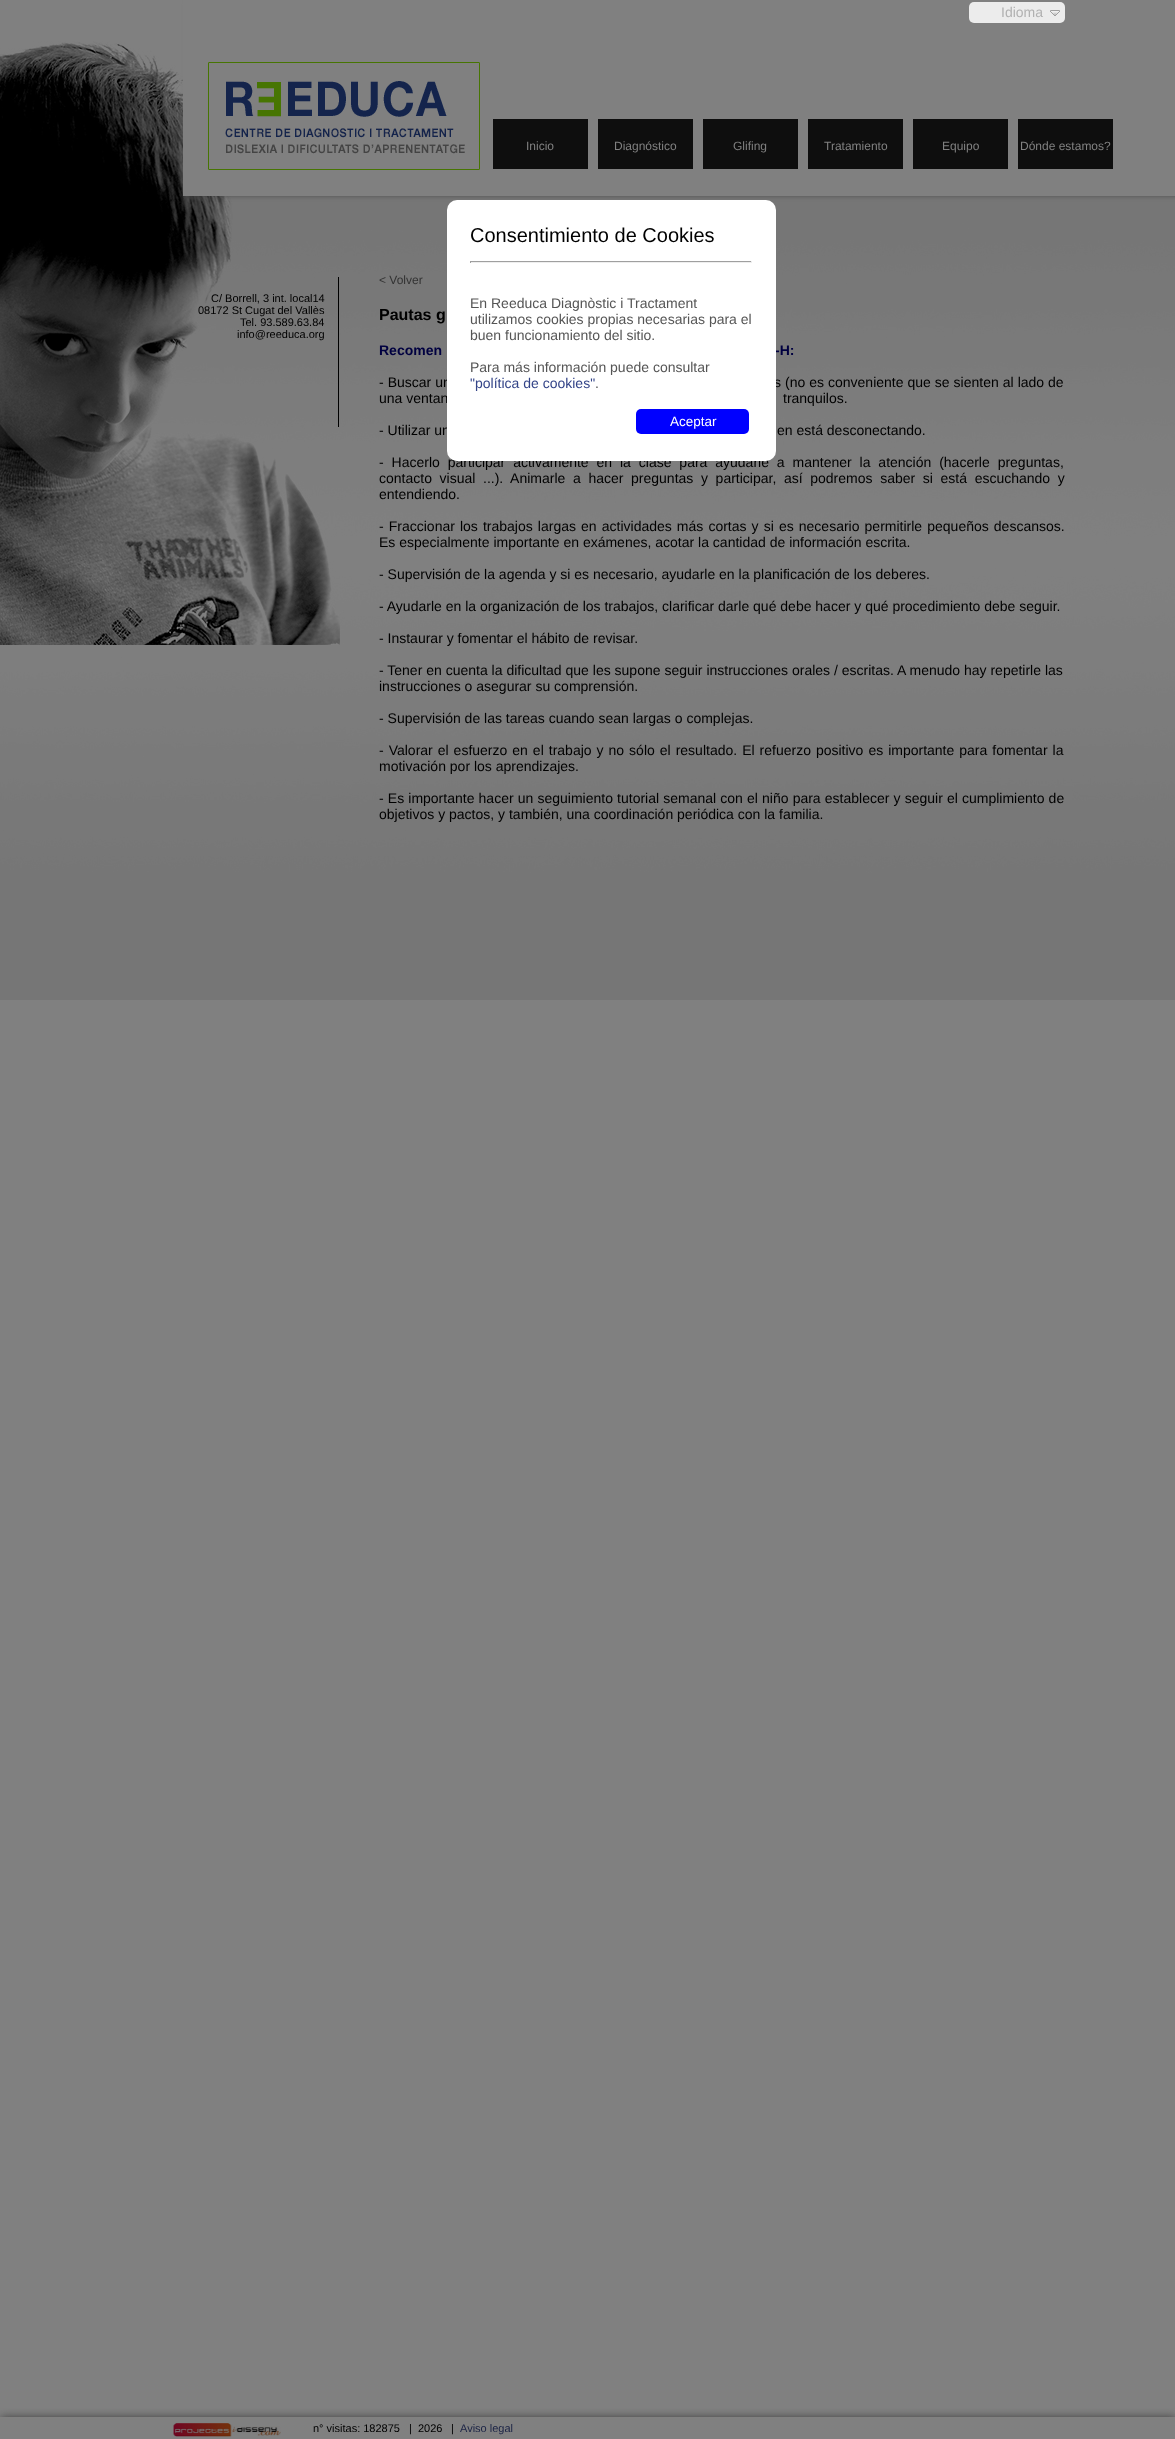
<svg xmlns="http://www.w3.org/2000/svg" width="1175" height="2439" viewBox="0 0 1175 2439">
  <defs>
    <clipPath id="clip1"><rect x="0" y="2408" width="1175" height="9"/></clipPath>
  </defs>
  <rect width="100%" height="100%" fill="rgb(128,128,128)"/>
  <image x="0" y="41" width="1175" height="959" href="pic1.png"/>
  <rect x="189" y="4" width="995" height="190" fill="rgb(51,51,51)" filter="blur(3px)"/>
  <rect x="183" y="0" width="992" height="196" fill="rgb(128,128,128)"/>
  <rect x="969" y="2" width="96" height="21" rx="5" fill="rgb(236,236,236)"/>
  <text x="1001" y="17" font-family="Liberation Sans" font-size="14" fill="rgb(177,177,177)">Idioma</text>
  <image x="1050" y="10" width="10" height="6" href="pic2.png"/>
  <text x="109" y="58" font-family="Liberation Sans" font-size="14" fill="rgb(128,128,128)">.</text>
  <image x="208" y="62" width="272" height="108" href="pic3.png"/>
  <rect x="493" y="119" width="95" height="50" fill="rgb(14,14,14)"/>
  <text x="526" y="150" font-family="Liberation Sans" font-size="12" fill="rgb(128,128,128)">Inicio</text>
  <rect x="598" y="119" width="95" height="50" fill="rgb(14,14,14)"/>
  <text x="614" y="150" font-family="Liberation Sans" font-size="12" fill="rgb(128,128,128)">Diagnóstico</text>
  <rect x="703" y="119" width="95" height="50" fill="rgb(14,14,14)"/>
  <text x="733" y="150" font-family="Liberation Sans" font-size="12" fill="rgb(128,128,128)">Glifing</text>
  <rect x="808" y="119" width="95" height="50" fill="rgb(14,14,14)"/>
  <text x="824" y="150" font-family="Liberation Sans" font-size="12" fill="rgb(128,128,128)">Tratamiento</text>
  <rect x="913" y="119" width="95" height="50" fill="rgb(14,14,14)"/>
  <text x="942" y="150" font-family="Liberation Sans" font-size="12" fill="rgb(128,128,128)">Equipo</text>
  <rect x="1018" y="119" width="95" height="50" fill="rgb(14,14,14)"/>
  <text x="1020" y="150" font-family="Liberation Sans" font-size="12" fill="rgb(128,128,128)">Dónde estamos?</text>
  <g font-family="Liberation Sans" font-size="11" fill="rgb(0,0,0)">
    <text x="211" y="302">C/ Borrell, 3 int. local14</text>
    <text x="198" y="314">08172 St Cugat del Vallès</text>
    <text x="240" y="326">Tel. 93.589.63.84</text>
    <text x="237" y="338">info@reeduca.org</text>
  </g>
  <rect x="338" y="277" width="1" height="150" fill="rgb(0,0,0)"/>
  <text x="379" y="284" font-family="Liberation Sans" font-size="12" fill="rgb(51,51,51)">&lt; Volver</text>
  <text x="379" y="320" font-family="Liberation Sans" font-size="16" font-weight="bold" fill="rgb(0,0,0)">Pautas g</text>
  <g font-family="Liberation Sans" font-size="14" font-weight="bold" fill="rgb(0,0,64)">
    <text x="379" y="355">Recomen</text>
    <text x="775" y="355">-H:</text>
  </g>
  <g font-family="Liberation Sans" font-size="14" fill="rgb(0,0,0)">
    <text x="379" y="387" word-spacing="0.1">- Buscar un</text>
    <text x="774" y="387" word-spacing="0.1">s (no es conveniente que se sienten al lado de</text>
    <text x="379" y="403">una ventan</text>
    <text x="783" y="403">tranquilos.</text>
    <text x="379" y="435">- Utilizar un</text>
    <text x="777" y="435">en está desconectando.</text>
    <text>
      <tspan x="379" y="467" word-spacing="4">- Hacerlo participar activamente en la clase para ayudarle a mantener la atención (hacerle preguntas,</tspan>
      <tspan x="379" y="483" word-spacing="3.75">contacto visual ...). Animarle a hacer preguntas y participar, así podremos saber si está escuchando y</tspan>
      <tspan x="379" y="499">entendiendo.</tspan>
    </text>
    <text>
      <tspan x="379" y="531" word-spacing="1.2">- Fraccionar los trabajos largas en actividades más cortas y si es necesario permitirle pequeños descansos.</tspan>
      <tspan x="379" y="547">Es especialmente importante en exámenes, acotar la cantidad de información escrita.</tspan>
    </text>
    <text x="379" y="579">- Supervisión de la agenda y si es necesario, ayudarle en la planificación de los deberes.</text>
    <text x="379" y="611">- Ayudarle en la organización de los trabajos, clarificar darle qué debe hacer y qué procedimiento debe seguir.</text>
    <text x="379" y="643">- Instaurar y fomentar el hábito de revisar.</text>
    <text>
      <tspan x="379" y="675">- Tener en cuenta la dificultad que les supone seguir instrucciones orales / escritas. A menudo hay repetirle las</tspan>
      <tspan x="379" y="691">instrucciones o asegurar su comprensión.</tspan>
    </text>
    <text x="379" y="723">- Supervisión de las tareas cuando sean largas o complejas.</text>
    <text>
      <tspan x="379" y="755" word-spacing="1.1">- Valorar el esfuerzo en el trabajo y no sólo el resultado. El refuerzo positivo es importante para fomentar la</tspan>
      <tspan x="379" y="771">motivación por los aprendizajes.</tspan>
    </text>
    <text>
      <tspan x="379" y="803" word-spacing="0.25">- Es importante hacer un seguimiento tutorial semanal con el niño para establecer y seguir el cumplimiento de</tspan>
      <tspan x="379" y="819">objetivos y pactos, y también, una coordinación periódica con la familia.</tspan>
    </text>
  </g>
  <rect x="447" y="200" width="329" height="261" rx="10" fill="rgb(255,255,255)"/>
  <text x="470" y="242" font-family="Liberation Sans" font-size="20" fill="rgb(0,0,0)">Consentimiento de Cookies</text>
  <rect x="470" y="261" width="282" height="1" fill="rgb(159,159,159)"/>
  <rect x="751" y="261" width="1" height="2" fill="rgb(238,238,238)"/>
  <rect x="470" y="262" width="282" height="1" fill="rgb(238,238,238)"/>
  <rect x="470" y="261" width="1" height="2" fill="rgb(159,159,159)"/>
  <g font-family="Liberation Sans" font-size="14" fill="rgb(85,85,85)">
    <text>
      <tspan x="470" y="308">En Reeduca Diagnòstic i Tractament</tspan>
      <tspan x="470" y="324">utilizamos cookies propias necesarias para el</tspan>
      <tspan x="470" y="340">buen funcionamiento del sitio.</tspan>
    </text>
    <text x="470" y="372">Para más información puede consultar</text>
  </g>
  <text x="470" y="388" font-family="Liberation Sans" font-size="14" fill="rgb(51,68,136)">"política de cookies"</text>
  <text x="595" y="388" font-family="Liberation Sans" font-size="14" fill="rgb(85,85,85)">.</text>
  <rect x="636" y="409" width="113" height="25" rx="5" fill="rgb(0,0,255)"/>
  <text x="670" y="426" font-family="Liberation Sans" font-size="13.5" fill="rgb(255,255,255)">Aceptar</text>
  <g clip-path="url(#clip1)">
    <rect x="1" y="2418" width="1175" height="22" fill="rgb(51,51,51)" filter="blur(5px)"/>
  </g>
  <image x="173" y="2423" width="108" height="14" href="pic4.png"/>
  <g font-family="Liberation Sans" font-size="11" fill="rgb(0,0,0)">
    <text x="313" y="2432">n° visitas: 182875</text>
    <text x="409" y="2432">|</text>
    <text x="418" y="2432">2026</text>
    <text x="451" y="2432">|</text>
  </g>
  <text x="460" y="2432" font-family="Liberation Sans" font-size="11" fill="rgb(26,34,68)">Aviso legal</text>
</svg>
